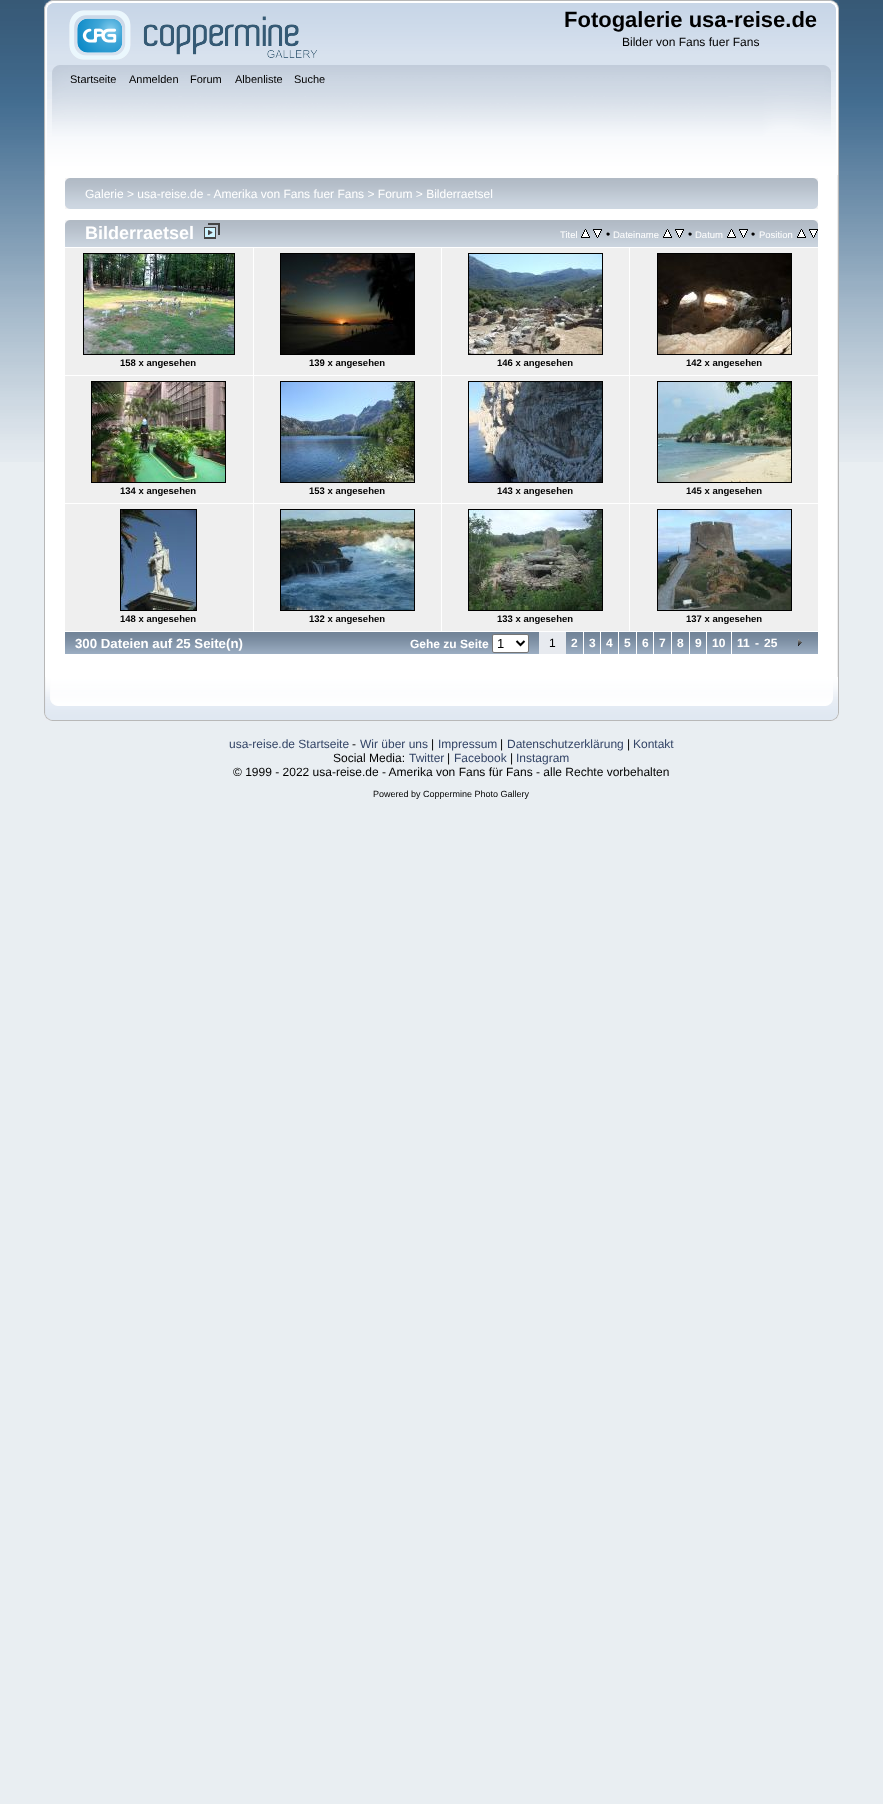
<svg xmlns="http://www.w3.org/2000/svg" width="883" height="1804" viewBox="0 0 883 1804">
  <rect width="100%" height="100%" fill="rgb(233,238,242)"/>
  <image x="0" y="0" width="883" height="462" href="pic1.png"/>
  <image x="44" y="0" width="787" height="65" href="pic2.png"/>
  <image x="831" y="0" width="8" height="65" href="pic3.png"/>
  <image x="69" y="10" width="248" height="50" href="pic4.png"/>
  <text x="564" y="27" font-family="Liberation Sans" font-size="22" font-weight="bold" fill="rgb(0,0,0)">Fotogalerie usa-reise.de</text>
  <text x="622" y="46" font-family="Liberation Sans" font-size="12" fill="rgb(0,0,0)">Bilder von Fans fuer Fans</text>
  <image x="44" y="65" width="780" height="110" href="pic5.png"/>
  <image x="824" y="65" width="15" height="110" href="pic6.png"/>
  <g font-family="Liberation Sans" font-size="11" fill="rgb(0,0,0)">
    <text x="70" y="83">Startseite</text>
    <text x="129" y="83">Anmelden</text>
    <text x="190" y="83">Forum</text>
    <text x="235" y="83">Albenliste</text>
    <text x="294" y="83">Suche</text>
  </g>
  <rect x="45" y="175" width="792" height="502" fill="rgb(255,255,255)"/>
  <rect x="44" y="175" width="1" height="502" fill="rgb(183,183,183)"/>
  <image x="837" y="175" width="2" height="502" href="pic7.png"/>
  <image x="65" y="178" width="748" height="31" href="pic8.png"/>
  <image x="813" y="178" width="5" height="31" href="pic9.png"/>
  <text x="85" y="198" font-family="Liberation Sans" font-size="12" fill="rgb(255,255,255)">Galerie &gt; usa-reise.de - Amerika von Fans fuer Fans &gt; Forum &gt; Bilderraetsel</text>
  <image x="65" y="220" width="753" height="27" href="pic10.png"/>
  <image x="813" y="220" width="5" height="4" href="pic11.png"/>
  <text x="85" y="239" font-family="Liberation Sans" font-size="18" font-weight="bold" fill="rgb(255,255,255)">Bilderraetsel</text>
  <image x="204" y="223" width="16" height="16" href="pic12.png"/>
  <text x="560" y="238" font-family="Liberation Sans" font-size="9.5" fill="rgb(255,255,255)">Titel</text>
  <image x="581" y="229" width="9" height="9" href="pic13.png"/>
  <image x="593" y="229" width="9" height="9" href="pic14.png"/>
  <text x="606" y="238" font-family="Liberation Sans" font-size="12" fill="rgb(0,0,0)">•</text>
  <text x="613" y="238" font-family="Liberation Sans" font-size="9.5" fill="rgb(255,255,255)">Dateiname</text>
  <image x="663" y="229" width="9" height="9" href="pic13.png"/>
  <image x="675" y="229" width="9" height="9" href="pic14.png"/>
  <text x="688" y="238" font-family="Liberation Sans" font-size="12" fill="rgb(0,0,0)">•</text>
  <text x="695" y="238" font-family="Liberation Sans" font-size="9.5" fill="rgb(255,255,255)">Datum</text>
  <image x="727" y="229" width="9" height="9" href="pic13.png"/>
  <image x="739" y="229" width="9" height="9" href="pic14.png"/>
  <text x="751" y="238" font-family="Liberation Sans" font-size="12" fill="rgb(0,0,0)">•</text>
  <text x="759" y="238" font-family="Liberation Sans" font-size="9.5" fill="rgb(255,255,255)">Position</text>
  <image x="797" y="229" width="9" height="9" href="pic13.png"/>
  <image x="809" y="229" width="9" height="9" href="pic14.png"/>
  <rect x="65" y="248" width="188" height="127" fill="rgb(239,239,239)"/>
  <rect x="83.5" y="253.5" width="151" height="101" fill="none" stroke="rgb(0,0,0)"/>
  <image x="84" y="254" width="150" height="100" href="pic15.png"/>
  <text x="120" y="366" font-family="Liberation Sans" font-size="9.5" font-weight="bold" fill="rgb(0,0,0)">158 x angesehen</text>
  <rect x="254" y="248" width="187" height="127" fill="rgb(239,239,239)"/>
  <rect x="280.5" y="253.5" width="134" height="101" fill="none" stroke="rgb(0,0,0)"/>
  <image x="281" y="254" width="133" height="100" href="pic16.png"/>
  <text x="309" y="366" font-family="Liberation Sans" font-size="9.5" font-weight="bold" fill="rgb(0,0,0)">139 x angesehen</text>
  <rect x="442" y="248" width="187" height="127" fill="rgb(239,239,239)"/>
  <rect x="468.5" y="253.5" width="134" height="101" fill="none" stroke="rgb(0,0,0)"/>
  <image x="469" y="254" width="133" height="100" href="pic17.png"/>
  <text x="497" y="366" font-family="Liberation Sans" font-size="9.5" font-weight="bold" fill="rgb(0,0,0)">146 x angesehen</text>
  <rect x="630" y="248" width="188" height="127" fill="rgb(239,239,239)"/>
  <rect x="657.5" y="253.5" width="134" height="101" fill="none" stroke="rgb(0,0,0)"/>
  <image x="658" y="254" width="133" height="100" href="pic18.png"/>
  <text x="686" y="366" font-family="Liberation Sans" font-size="9.5" font-weight="bold" fill="rgb(0,0,0)">142 x angesehen</text>
  <rect x="65" y="376" width="188" height="127" fill="rgb(239,239,239)"/>
  <rect x="91.5" y="381.5" width="134" height="101" fill="none" stroke="rgb(0,0,0)"/>
  <image x="92" y="382" width="133" height="100" href="pic19.png"/>
  <text x="120" y="494" font-family="Liberation Sans" font-size="9.5" font-weight="bold" fill="rgb(0,0,0)">134 x angesehen</text>
  <rect x="254" y="376" width="187" height="127" fill="rgb(239,239,239)"/>
  <rect x="280.5" y="381.5" width="134" height="101" fill="none" stroke="rgb(0,0,0)"/>
  <image x="281" y="382" width="133" height="100" href="pic20.png"/>
  <text x="309" y="494" font-family="Liberation Sans" font-size="9.5" font-weight="bold" fill="rgb(0,0,0)">153 x angesehen</text>
  <rect x="442" y="376" width="187" height="127" fill="rgb(239,239,239)"/>
  <rect x="468.5" y="381.5" width="134" height="101" fill="none" stroke="rgb(0,0,0)"/>
  <image x="469" y="382" width="133" height="100" href="pic21.png"/>
  <text x="497" y="494" font-family="Liberation Sans" font-size="9.5" font-weight="bold" fill="rgb(0,0,0)">143 x angesehen</text>
  <rect x="630" y="376" width="188" height="127" fill="rgb(239,239,239)"/>
  <rect x="657.5" y="381.5" width="134" height="101" fill="none" stroke="rgb(0,0,0)"/>
  <image x="658" y="382" width="133" height="100" href="pic22.png"/>
  <text x="686" y="494" font-family="Liberation Sans" font-size="9.5" font-weight="bold" fill="rgb(0,0,0)">145 x angesehen</text>
  <rect x="65" y="504" width="188" height="127" fill="rgb(239,239,239)"/>
  <rect x="120.5" y="509.5" width="76" height="101" fill="none" stroke="rgb(0,0,0)"/>
  <image x="121" y="510" width="75" height="100" href="pic23.png"/>
  <text x="120" y="622" font-family="Liberation Sans" font-size="9.5" font-weight="bold" fill="rgb(0,0,0)">148 x angesehen</text>
  <rect x="254" y="504" width="187" height="127" fill="rgb(239,239,239)"/>
  <rect x="280.5" y="509.5" width="134" height="101" fill="none" stroke="rgb(0,0,0)"/>
  <image x="281" y="510" width="133" height="100" href="pic24.png"/>
  <text x="309" y="622" font-family="Liberation Sans" font-size="9.5" font-weight="bold" fill="rgb(0,0,0)">132 x angesehen</text>
  <rect x="442" y="504" width="187" height="127" fill="rgb(239,239,239)"/>
  <rect x="468.5" y="509.5" width="134" height="101" fill="none" stroke="rgb(0,0,0)"/>
  <image x="469" y="510" width="133" height="100" href="pic25.png"/>
  <text x="497" y="622" font-family="Liberation Sans" font-size="9.5" font-weight="bold" fill="rgb(0,0,0)">133 x angesehen</text>
  <rect x="630" y="504" width="188" height="127" fill="rgb(239,239,239)"/>
  <rect x="657.5" y="509.5" width="134" height="101" fill="none" stroke="rgb(0,0,0)"/>
  <image x="658" y="510" width="133" height="100" href="pic26.png"/>
  <text x="686" y="622" font-family="Liberation Sans" font-size="9.5" font-weight="bold" fill="rgb(0,0,0)">137 x angesehen</text>
  <image x="65" y="632" width="345" height="22" href="pic27.png"/>
  <text x="75" y="648" font-family="Liberation Sans" font-size="13.25" font-weight="bold" fill="rgb(255,255,255)">300 Dateien auf 25 Seite(n)</text>
  <image x="410" y="632" width="129" height="22" href="pic28.png"/>
  <text x="410" y="648" font-family="Liberation Sans" font-size="12" font-weight="bold" fill="rgb(255,255,255)">Gehe zu Seite</text>
  <rect x="492.5" y="634.5" width="36" height="18" rx="1.5" fill="rgb(255,255,255)" stroke="rgb(118,118,118)"/>
  <path d="M516.5 641L520.5 645L524.5 641" fill="none" stroke="rgb(0,0,0)" stroke-width="2"/>
  <text x="497" y="648" font-family="Liberation Sans" font-size="13" fill="rgb(0,0,0)">1</text>
  <rect x="539" y="632" width="27" height="22" fill="rgb(231,234,239)"/>
  <text x="549" y="647" font-family="Liberation Sans" font-size="12" fill="rgb(0,0,0)">1</text>
  <image x="566" y="632" width="17" height="22" href="pic29.png"/>
  <text x="571" y="647" font-family="Liberation Sans" font-size="12" font-weight="bold" fill="rgb(255,255,255)">2</text>
  <image x="584" y="632" width="16" height="22" href="pic30.png"/>
  <text x="589" y="647" font-family="Liberation Sans" font-size="12" font-weight="bold" fill="rgb(255,255,255)">3</text>
  <image x="601" y="632" width="17" height="22" href="pic29.png"/>
  <text x="606" y="647" font-family="Liberation Sans" font-size="12" font-weight="bold" fill="rgb(255,255,255)">4</text>
  <image x="619" y="632" width="17" height="22" href="pic29.png"/>
  <text x="624" y="647" font-family="Liberation Sans" font-size="12" font-weight="bold" fill="rgb(255,255,255)">5</text>
  <image x="637" y="632" width="16" height="22" href="pic30.png"/>
  <text x="642" y="647" font-family="Liberation Sans" font-size="12" font-weight="bold" fill="rgb(255,255,255)">6</text>
  <image x="654" y="632" width="17" height="22" href="pic29.png"/>
  <text x="659" y="647" font-family="Liberation Sans" font-size="12" font-weight="bold" fill="rgb(255,255,255)">7</text>
  <image x="672" y="632" width="17" height="22" href="pic29.png"/>
  <text x="677" y="647" font-family="Liberation Sans" font-size="12" font-weight="bold" fill="rgb(255,255,255)">8</text>
  <image x="690" y="632" width="16" height="22" href="pic30.png"/>
  <text x="695" y="647" font-family="Liberation Sans" font-size="12" font-weight="bold" fill="rgb(255,255,255)">9</text>
  <image x="707" y="632" width="24" height="22" href="pic31.png"/>
  <text x="712" y="647" font-family="Liberation Sans" font-size="12" font-weight="bold" fill="rgb(255,255,255)">10</text>
  <image x="732" y="632" width="23" height="22" href="pic32.png"/>
  <text x="737" y="647" font-family="Liberation Sans" font-size="12" font-weight="bold" fill="rgb(255,255,255)">11</text>
  <image x="755" y="632" width="4" height="22" href="pic33.png"/>
  <text x="755" y="647" font-family="Liberation Sans" font-size="12" font-weight="bold" fill="rgb(255,255,255)">-</text>
  <image x="759" y="632" width="23" height="22" href="pic32.png"/>
  <text x="764" y="647" font-family="Liberation Sans" font-size="12" font-weight="bold" fill="rgb(255,255,255)">25</text>
  <image x="782" y="632" width="36" height="22" href="pic34.png"/>
  <image x="798" y="639" width="4" height="7" href="pic35.png"/>
  <image x="44" y="677" width="782" height="44" href="pic36.png"/>
  <image x="826" y="677" width="13" height="44" href="pic37.png"/>
  <text x="229" y="748" font-family="Liberation Sans" font-size="12" fill="rgb(51,68,102)">usa-reise.de Startseite</text>
  <text x="352" y="748" font-family="Liberation Sans" font-size="12" fill="rgb(0,0,0)">-</text>
  <text x="360" y="748" font-family="Liberation Sans" font-size="12" fill="rgb(51,68,102)">Wir über uns</text>
  <text x="431" y="748" font-family="Liberation Sans" font-size="12" fill="rgb(0,0,0)">|</text>
  <text x="438" y="748" font-family="Liberation Sans" font-size="12" fill="rgb(51,68,102)">Impressum</text>
  <text x="500" y="748" font-family="Liberation Sans" font-size="12" fill="rgb(0,0,0)">|</text>
  <text x="507" y="748" font-family="Liberation Sans" font-size="12" fill="rgb(51,68,102)">Datenschutzerklärung</text>
  <text x="627" y="748" font-family="Liberation Sans" font-size="12" fill="rgb(0,0,0)">|</text>
  <text x="633" y="748" font-family="Liberation Sans" font-size="12" fill="rgb(51,68,102)">Kontakt</text>
  <text x="333" y="762" font-family="Liberation Sans" font-size="12" fill="rgb(0,0,0)">Social Media:</text>
  <text x="409" y="762" font-family="Liberation Sans" font-size="12" fill="rgb(51,68,102)">Twitter</text>
  <text x="447" y="762" font-family="Liberation Sans" font-size="12" fill="rgb(0,0,0)">|</text>
  <text x="454" y="762" font-family="Liberation Sans" font-size="12" fill="rgb(51,68,102)">Facebook</text>
  <text x="510" y="762" font-family="Liberation Sans" font-size="12" fill="rgb(0,0,0)">|</text>
  <text x="516" y="762" font-family="Liberation Sans" font-size="12" fill="rgb(51,68,102)">Instagram</text>
  <text x="233" y="776" font-family="Liberation Sans" font-size="12" fill="rgb(0,0,0)">© 1999 - 2022 usa-reise.de - Amerika von Fans für Fans - alle Rechte vorbehalten</text>
  <text x="373" y="797" font-family="Liberation Sans" font-size="9" fill="rgb(0,0,0)">Powered by Coppermine Photo Gallery</text>
</svg>
